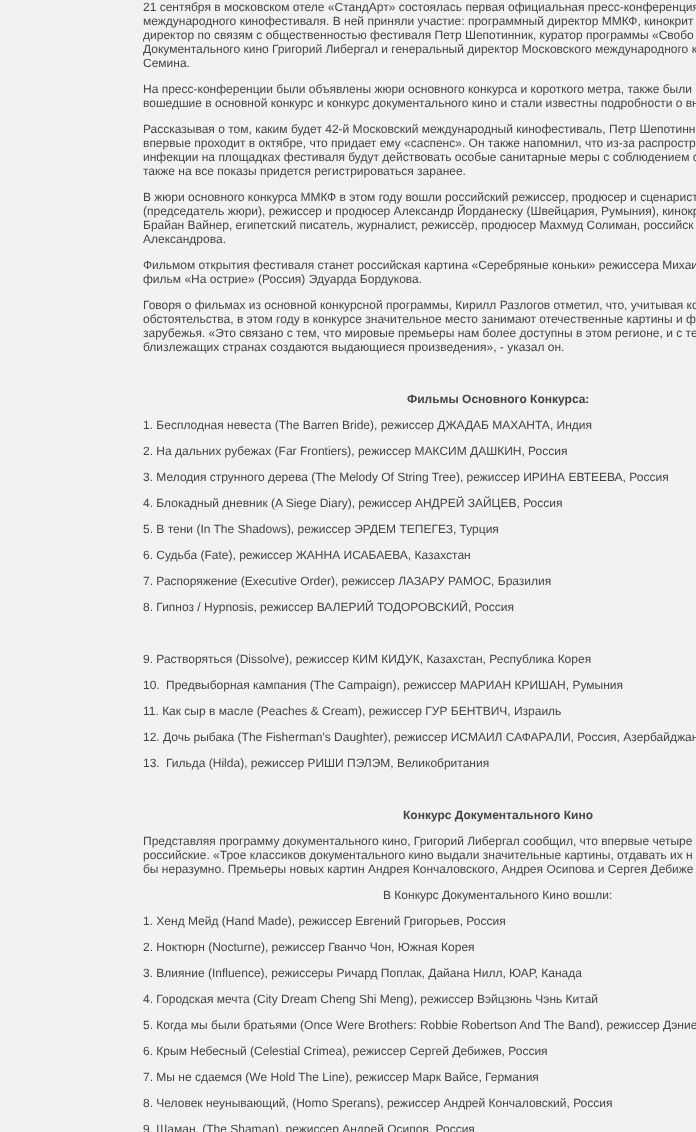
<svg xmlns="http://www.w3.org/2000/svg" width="696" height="1132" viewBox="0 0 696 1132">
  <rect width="100%" height="100%" fill="rgb(242,242,242)"/>
  <g font-family="Liberation Sans" font-size="12" fill="rgb(68,68,68)">
    <text>
      <tspan x="143" y="11">21 сентября в московском отеле «СтандАрт» состоялась первая официальная пресс-конференция</tspan>
      <tspan x="143" y="25">международного кинофестиваля. В ней приняли участие: программный директор ММКФ, кинокрит</tspan>
      <tspan x="143" y="39">директор по связям с общественностью фестиваля Петр Шепотинник, куратор программы «Свобо</tspan>
      <tspan x="143" y="53">Документального кино Григорий Либергал и генеральный директор Московского международного к</tspan>
      <tspan x="143" y="67">Семина.</tspan>
    </text>
    <text>
      <tspan x="143" y="93">На пресс-конференции были объявлены жюри основного конкурса и короткого метра, также были</tspan>
      <tspan x="143" y="107">вошедшие в основной конкурс и конкурс документального кино и стали известны подробности о вн</tspan>
    </text>
    <text>
      <tspan x="143" y="133">Рассказывая о том, каким будет 42-й Московский международный кинофестиваль, Петр Шепотинн</tspan>
      <tspan x="143" y="147">впервые проходит в октябре, что придает ему «саспенс». Он также напомнил, что из-за распростр</tspan>
      <tspan x="143" y="161">инфекции на площадках фестиваля будут действовать особые санитарные меры с соблюдением с</tspan>
      <tspan x="143" y="175">также на все показы придется регистрироваться заранее.</tspan>
    </text>
    <text>
      <tspan x="143" y="201">В жюри основного конкурса ММКФ в этом году вошли российский режиссер, продюсер и сценарист</tspan>
      <tspan x="143" y="215">(председатель жюри), режиссер и продюсер Александр Йорданеску (Швейцария, Румыния), кинокр</tspan>
      <tspan x="143" y="229">Брайан Вайнер, египетский писатель, журналист, режиссёр, продюсер Махмуд Солиман, российск</tspan>
      <tspan x="143" y="243">Александрова.</tspan>
    </text>
    <text>
      <tspan x="143" y="269">Фильмом открытия фестиваля станет российская картина «Серебряные коньки» режиссера Михаи</tspan>
      <tspan x="143" y="283">фильм «На острие» (Россия) Эдуарда Бордукова.</tspan>
    </text>
    <text>
      <tspan x="143" y="309">Говоря о фильмах из основной конкурсной программы, Кирилл Разлогов отметил, что, учитывая ко</tspan>
      <tspan x="143" y="323">обстоятельства, в этом году в конкурсе значительное место занимают отечественные картины и ф</tspan>
      <tspan x="143" y="337">зарубежья. «Это связано с тем, что мировые премьеры нам более доступны в этом регионе, и с те</tspan>
      <tspan x="143" y="351">близлежащих странах создаются выдающиеся произведения», - указал он.</tspan>
    </text>
  </g>
  <text x="407" y="403" font-family="Liberation Sans" font-size="12" font-weight="bold" fill="rgb(68,68,68)">Фильмы Основного Конкурса:</text>
  <g font-family="Liberation Sans" font-size="12" fill="rgb(68,68,68)">
    <text x="143" y="429">1. Бесплодная невеста (The Barren Bride), режиссер ДЖАДАБ МАХАНТА, Индия</text>
    <text x="143" y="455">2. На дальних рубежах (Far Frontiers), режиссер МАКСИМ ДАШКИН, Россия</text>
    <text x="143" y="481">3. Мелодия струнного дерева (The Melody Of String Tree), режиссер ИРИНА ЕВТЕЕВА, Россия</text>
    <text x="143" y="507">4. Блокадный дневник (A Siege Diary), режиссер АНДРЕЙ ЗАЙЦЕВ, Россия</text>
    <text x="143" y="533">5. В тени (In The Shadows), режиссер ЭРДЕМ ТЕПЕГЕЗ, Турция</text>
    <text x="143" y="559">6. Судьба (Fate), режиссер ЖАННА ИСАБАЕВА, Казахстан</text>
    <text x="143" y="585">7. Распоряжение (Executive Order), режиссер ЛАЗАРУ РАМОС, Бразилия</text>
    <text x="143" y="611">8. Гипноз / Hypnosis, режиссер ВАЛЕРИЙ ТОДОРОВСКИЙ, Россия</text>
    <text x="143" y="663">9. Растворяться (Dissolve), режиссер КИМ КИДУК, Казахстан, Республика Корея</text>
    <text x="143" y="689">10.</text>
    <text x="166" y="689">Предвыборная кампания (The Campaign), режиссер МАРИАН КРИШАН, Румыния</text>
    <text x="143" y="715">11. Как сыр в масле (Peaches &amp; Cream), режиссер ГУР БЕНТВИЧ, Израиль</text>
    <text x="143" y="741">12. Дочь рыбака (The Fisherman’s Daughter), режиссер ИСМАИЛ САФАРАЛИ, Россия, Азербайджан</text>
    <text x="143" y="767">13.</text>
    <text x="166" y="767">Гильда (Hilda), режиссер РИШИ ПЭЛЭМ, Великобритания</text>
  </g>
  <text x="403" y="819" font-family="Liberation Sans" font-size="12" font-weight="bold" fill="rgb(68,68,68)">Конкурс Документального Кино</text>
  <g font-family="Liberation Sans" font-size="12" fill="rgb(68,68,68)">
    <text>
      <tspan x="143" y="845">Представляя программу документального кино, Григорий Либергал сообщил, что впервые четыре</tspan>
      <tspan x="143" y="859">российские. «Трое классиков документального кино выдали значительные картины, отдавать их н</tspan>
      <tspan x="143" y="873">бы неразумно. Премьеры новых картин Андрея Кончаловского, Андрея Осипова и Сергея Дебиже</tspan>
    </text>
    <text x="383" y="899">В Конкурс Документального Кино вошли:</text>
    <text x="143" y="925">1. Хенд Мейд (Hand Made), режиссер Евгений Григорьев, Россия</text>
    <text x="143" y="951">2. Ноктюрн (Nocturne), режиссер Гванчо Чон, Южная Корея</text>
    <text x="143" y="977">3. Влияние (Influence), режиссеры Ричард Поплак, Дайана Нилл, ЮАР, Канада</text>
    <text x="143" y="1003">4. Городская мечта (City Dream Cheng Shi Meng), режиссер Вэйцзюнь Чэнь Китай</text>
    <text x="143" y="1029">5. Когда мы были братьями (Once Were Brothers: Robbie Robertson And The Band), режиссер Дэние</text>
    <text x="143" y="1055">6. Крым Небесный (Celestial Crimea), режиссер Cергей Дебижев, Россия</text>
    <text x="143" y="1081">7. Мы не сдаемся (We Hold The Line), режиссер Марк Вайсе, Германия</text>
    <text x="143" y="1107">8. Человек неунывающий, (Homo Sperans), режиссер Андрей Кончаловский, Россия</text>
    <text x="143" y="1133">9. Шаман, (The Shaman), режиссер Андрей Осипов, Россия</text>
  </g>
</svg>
